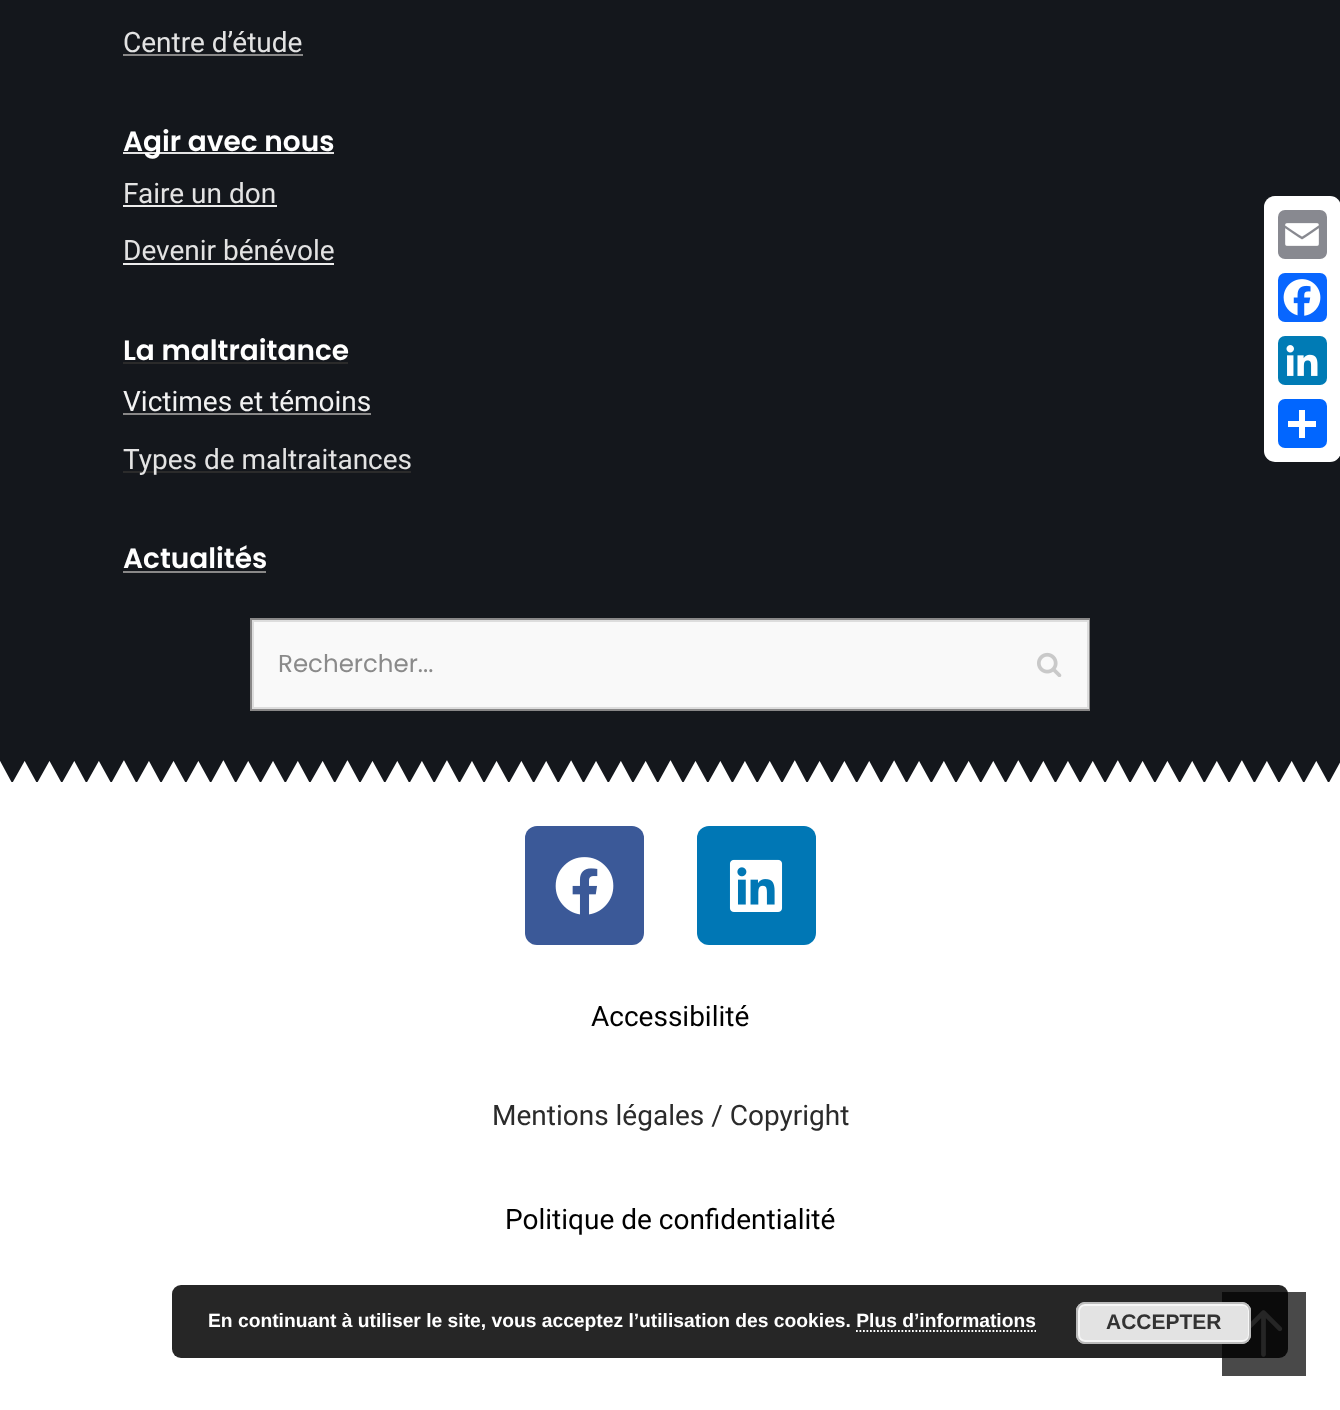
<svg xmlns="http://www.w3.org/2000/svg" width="1340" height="1410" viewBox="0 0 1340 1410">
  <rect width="100%" height="100%" fill="rgb(20,23,28)"/>
  <text x="123" y="52" font-family="Roboto" font-size="28" fill="rgb(227,227,227)">Centre d’étude</text>
  <rect x="123" y="54" width="180" height="2" fill="rgb(137,136,136)"/>
  <rect x="123" y="152" width="211" height="2" fill="rgb(227,227,227)"/>
  <text x="123" y="151" font-family="Poppins" font-size="28" font-weight="600" fill="rgb(255,255,255)">Agir avec nous</text>
  <text x="123" y="203" font-family="Roboto" font-size="28" fill="rgb(227,227,227)">Faire un don</text>
  <rect x="123" y="205" width="154" height="2" fill="rgb(237,237,237)"/>
  <text x="123" y="260" font-family="Roboto" font-size="28" fill="rgb(227,227,227)">Devenir bénévole</text>
  <rect x="123" y="263" width="211" height="2" fill="rgb(237,237,237)"/>
  <text x="123" y="360" font-family="Poppins" font-size="28" font-weight="600" fill="rgb(255,255,255)">La maltraitance</text>
  <rect x="123" y="362" width="225" height="2" fill="rgb(43,43,43)"/>
  <text x="123" y="411" font-family="Roboto" font-size="28" fill="rgb(242,242,242)">Victimes et témoins</text>
  <rect x="123" y="413" width="248" height="2" fill="rgb(137,136,136)"/>
  <rect x="123" y="471" width="288" height="2" fill="rgb(43,43,43)"/>
  <text x="123" y="469" font-family="Roboto" font-size="28" fill="rgb(227,227,227)">Types de maltraitances</text>
  <text x="123" y="568" font-family="Poppins" font-size="28" font-weight="600" fill="rgb(255,255,255)">Actualités</text>
  <rect x="123" y="571" width="143" height="2" fill="rgb(137,136,136)"/>
  <rect x="251" y="619" width="838" height="91" fill="none" stroke="rgb(137,136,136)" stroke-width="2"/>
  <rect x="253" y="621" width="835" height="87" fill="rgb(249,249,249)" stroke="rgb(221,221,221)" stroke-width="2"/>
  <text x="278" y="672" font-family="Poppins" font-size="24.5" fill="rgb(138,138,138)">Rechercher...</text>
  <image x="1037" y="652" width="25" height="25" href="pic1.png"/>
  <image x="0" y="760" width="1340" height="22" href="pic2.png"/>
  <rect x="0" y="782" width="1340" height="628" fill="rgb(255,255,255)"/>
  <rect x="525" y="826" width="119" height="119" rx="12" fill="rgb(59,89,152)"/>
  <image x="555" y="857" width="59" height="58" href="pic3.png"/>
  <rect x="697" y="826" width="119" height="119" rx="12" fill="rgb(0,119,181)"/>
  <image x="729" y="859" width="54" height="53" href="pic4.png"/>
  <text x="591" y="1026" font-family="Roboto" font-size="28" fill="rgb(0,0,0)">Accessibilité</text>
  <text x="492" y="1125" font-family="Roboto" font-size="28" fill="rgb(43,43,43)">Mentions légales / Copyright</text>
  <text x="505" y="1229" font-family="Roboto" font-size="28" fill="rgb(0,0,0)">Politique de confidentialité</text>
  <rect x="1264" y="196" width="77" height="266" rx="11" fill="rgb(255,255,255)"/>
  <rect x="1278" y="210" width="49" height="49" rx="7" fill="rgb(136,137,144)"/>
  <image x="1285" y="223" width="34" height="23" href="pic5.png"/>
  <rect x="1278" y="273" width="49" height="49" rx="7" fill="rgb(8,102,255)"/>
  <image x="1283" y="279" width="38" height="37" href="pic6.png"/>
  <rect x="1278" y="336" width="49" height="49" rx="7" fill="rgb(0,123,181)"/>
  <image x="1286" y="345" width="32" height="31" href="pic7.png"/>
  <rect x="1278" y="399" width="49" height="49" rx="7" fill="rgb(1,102,255)"/>
  <rect x="1299" y="410" width="6" height="28" fill="rgb(255,255,255)"/>
  <rect x="1288" y="421" width="28" height="6" fill="rgb(255,255,255)"/>
  <rect x="1222" y="1292" width="84" height="84" fill="rgb(73,73,73)"/>
  <image x="1251" y="1310" width="32" height="47" href="pic8.png"/>
  <rect x="172" y="1285" width="1116" height="73" rx="9" fill="rgba(0,0,0,0.85)"/>
  <text x="208" y="1327" font-family="Liberation Sans" font-size="19.25" font-weight="bold" fill="rgb(255,255,255)">En continuant à utiliser le site, vous acceptez l’utilisation des cookies. Plus d’informations</text>
  <rect x="1076" y="1302" width="175" height="42" rx="9" fill="rgb(227,227,227)"/>
  <rect x="1079" y="1305" width="170" height="36" rx="6" fill="none" stroke="rgb(246,246,246)" stroke-width="2"/>
  <rect x="1077" y="1303" width="173" height="40" rx="8" fill="none" stroke="rgb(187,187,187)" stroke-width="2"/>
  <text x="1106" y="1329" font-family="Liberation Sans" font-size="21" font-weight="bold" fill="rgb(51,51,51)">ACCEPTER</text>
  <path d="M856 1331H1036" fill="none" stroke="rgb(255,255,255)" stroke-width="1.8" stroke-dasharray="1.75 1.75"/>
</svg>
